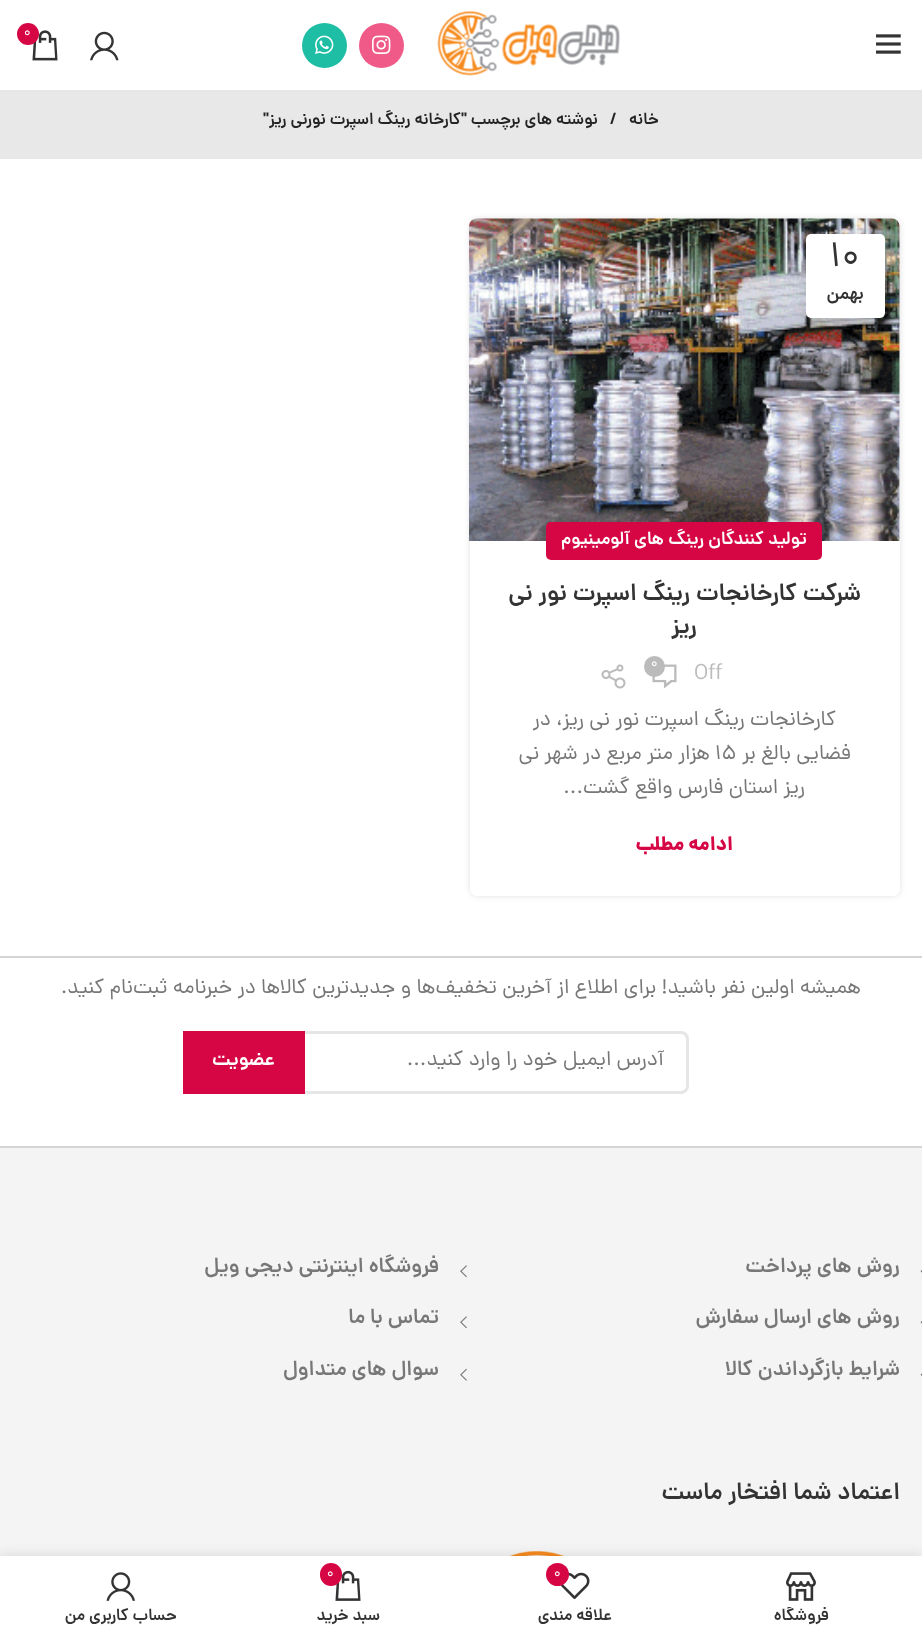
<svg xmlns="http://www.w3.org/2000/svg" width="922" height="1638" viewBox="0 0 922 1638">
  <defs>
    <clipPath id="clip1"><path d="M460 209H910V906H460ZM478 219H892C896.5 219 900 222.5 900 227V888C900 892.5 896.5 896 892 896H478C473.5 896 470 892.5 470 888V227C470 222.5 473.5 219 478 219Z" clip-rule="evenodd"/></clipPath>
    <clipPath id="clip2"><rect x="704" y="1607" width="196" height="19"/></clipPath>
  </defs>
  <rect width="100%" height="100%" fill="rgb(255,255,255)"/>
  <rect x="0" y="90" width="922" height="2" fill="rgb(230,230,230)"/>
  <image x="437" y="11" width="183" height="65" href="pic1.png"/>
  <circle cx="381.5" cy="45.5" r="22.5" fill="rgb(239,90,136)"/>
  <image x="372" y="35" width="19" height="19" href="pic2.png"/>
  <circle cx="324.5" cy="45.5" r="22.5" fill="rgb(30,190,165)"/>
  <image x="315" y="35" width="19" height="19" href="pic3.png"/>
  <image x="90" y="31" width="29" height="30" href="pic4.png"/>
  <image x="32" y="30" width="26" height="31" href="pic5.png"/>
  <circle cx="28" cy="34" r="11" fill="rgb(214,6,68)"/>
  <text x="24" y="36" font-family="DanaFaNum" font-size="14" fill="rgb(255,255,255)">0</text>
  <image x="876" y="34" width="25" height="20" href="pic6.png"/>
  <rect x="0" y="92" width="922" height="67" fill="rgb(232,232,232)"/>
  <text x="659" y="124" font-family="DanaFaNum" font-size="16.5" font-weight="600" direction="rtl" fill="rgb(36,36,36)">خانه</text>
  <text x="610" y="124" font-family="DanaFaNum" font-size="16.5" font-weight="600" fill="rgb(36,36,36)">/</text>
  <text x="598" y="124" font-family="DanaFaNum" font-size="16.5" font-weight="600" direction="rtl" fill="rgb(36,36,36)">نوشته های برچسب "کارخانه رینگ اسپرت نورنی ریز"</text>
  <g clip-path="url(#clip1)">
    <rect x="470" y="219" width="430" height="677" rx="8" fill="rgba(0,0,0,0.12)" filter="blur(3px)"/>
  </g>
  <image x="469" y="218" width="431" height="323" href="pic7.png"/>
  <rect x="806" y="234" width="79" height="84" rx="5" fill="rgba(0,0,0,0.1)" filter="blur(7px)"/>
  <rect x="806" y="234" width="79" height="84" rx="5" fill="rgb(255,255,255)"/>
  <text x="830" y="266" font-family="DanaFaNum" font-size="36" fill="rgb(51,51,51)">10</text>
  <text x="864" y="299" font-family="DanaFaNum" font-size="18" font-weight="600" direction="rtl" fill="rgb(51,51,51)">بهمن</text>
  <rect x="470" y="542" width="430" height="354" rx="8" fill="rgb(255,255,255)"/>
  <rect x="546" y="522" width="276" height="38" rx="5" fill="rgb(214,6,68)"/>
  <text x="807" y="544" font-family="DanaFaNum" font-size="18" font-weight="600" direction="rtl" fill="rgb(255,255,255)">تولید کنندگان رینگ های آلومینیوم</text>
  <g font-family="DanaFaNum" font-size="24" font-weight="600" direction="rtl" fill="rgb(51,51,51)">
    <text x="861" y="600">شرکت کارخانجات رینگ اسپرت نور نی</text>
    <text x="697" y="633">ریز</text>
  </g>
  <text x="694" y="679" font-family="DanaFaNum" font-size="21" fill="rgb(187,187,187)">Off</text>
  <image x="652" y="664" width="25" height="25" href="pic8.png"/>
  <circle cx="654.5" cy="666.5" r="10.5" fill="rgb(187,187,187)"/>
  <text x="651" y="667" font-family="DanaFaNum" font-size="14" fill="rgb(255,255,255)">0</text>
  <image x="601" y="664" width="25" height="25" href="pic9.png"/>
  <g font-family="DanaFaNum" font-size="21" direction="rtl" fill="rgb(119,119,119)">
    <text x="836" y="725">کارخانجات رینگ اسپرت نور نی ریز، در</text>
    <text x="851" y="759">فضایی بالغ بر</text>
  </g>
  <text x="715" y="759" font-family="DanaFaNum" font-size="21" fill="rgb(119,119,119)">15</text>
  <g font-family="DanaFaNum" font-size="21" direction="rtl" fill="rgb(119,119,119)">
    <text x="710" y="759">هزار متر مربع در شهر نی</text>
    <text x="805" y="793">ریز استان فارس واقع گشت...</text>
  </g>
  <text x="733" y="850" font-family="DanaFaNum" font-size="19.5" font-weight="800" direction="rtl" fill="rgb(214,6,68)">ادامه مطلب</text>
  <rect x="0" y="956" width="922" height="2" fill="rgb(213,213,213)"/>
  <rect x="0" y="1146" width="922" height="2" fill="rgb(213,213,213)"/>
  <text x="861" y="993" font-family="DanaFaNum" font-size="21" direction="rtl" fill="rgb(119,119,119)">همیشه اولین نفر باشید! برای اطلاع از آخرین تخفیف‌ها و جدیدترین کالاها در خبرنامه ثبت‌نام کنید.</text>
  <rect x="255.5" y="1032.5" width="432" height="60" rx="6.5" fill="none" stroke="rgb(230,230,230)" stroke-width="3"/>
  <text x="664" y="1065" font-family="DanaFaNum" font-size="21" direction="rtl" fill="rgb(119,119,119)">آدرس ایمیل خود را وارد کنید...</text>
  <rect x="183" y="1031" width="122" height="63" fill="rgb(214,6,68)"/>
  <text x="275" y="1065" font-family="DanaFaNum" font-size="19.5" font-weight="600" direction="rtl" fill="rgb(255,255,255)">عضویت</text>
  <rect x="0" y="1148" width="922" height="408" fill="rgb(244,244,244)"/>
  <image x="920" y="1270" width="2" height="3" href="pic10.png"/>
  <text x="900" y="1272" font-family="DanaFaNum" font-size="21" font-weight="600" direction="rtl" fill="rgb(119,119,119)">روش های پرداخت</text>
  <image x="920" y="1321" width="2" height="3" href="pic10.png"/>
  <text x="900" y="1323" font-family="DanaFaNum" font-size="21" font-weight="600" direction="rtl" fill="rgb(119,119,119)">روش های ارسال سفارش</text>
  <image x="920" y="1373" width="2" height="3" href="pic11.png"/>
  <text x="900" y="1375" font-family="DanaFaNum" font-size="21" font-weight="600" direction="rtl" fill="rgb(119,119,119)">شرایط بازگرداندن کالا</text>
  <image x="460" y="1265" width="7" height="13" href="pic12.png"/>
  <text x="439" y="1272" font-family="DanaFaNum" font-size="21" font-weight="600" direction="rtl" fill="rgb(119,119,119)">فروشگاه اینترنتی دیجی ویل</text>
  <image x="460" y="1316" width="7" height="13" href="pic12.png"/>
  <text x="439" y="1323" font-family="DanaFaNum" font-size="21" font-weight="600" direction="rtl" fill="rgb(119,119,119)">تماس با ما</text>
  <image x="460" y="1368" width="7" height="13" href="pic13.png"/>
  <text x="439" y="1375" font-family="DanaFaNum" font-size="21" font-weight="600" direction="rtl" fill="rgb(119,119,119)">سوال های متداول</text>
  <text x="900" y="1499" font-family="DanaFaNum" font-size="24" font-weight="600" direction="rtl" fill="rgb(51,51,51)">اعتماد شما افتخار ماست</text>
  <image x="509" y="1551" width="56" height="5" href="pic14.png"/>
  <rect x="0" y="1556" width="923" height="82" fill="rgba(0,0,0,0.12)" filter="blur(7px)"/>
  <rect x="0" y="1556" width="922" height="82" fill="rgb(255,255,255)"/>
  <image x="786" y="1572" width="30" height="29" href="pic15.png"/>
  <g clip-path="url(#clip2)">
    <text x="829" y="1620" font-family="DanaFaNum" font-size="16.5" font-weight="600" direction="rtl" fill="rgb(51,51,51)">فروشگاه</text>
  </g>
  <image x="560" y="1572" width="30" height="27" href="pic16.png"/>
  <circle cx="557.5" cy="1574.5" r="11.5" fill="rgb(214,6,68)"/>
  <text x="554" y="1577" font-family="DanaFaNum" font-size="14" fill="rgb(255,255,255)">0</text>
  <text x="612" y="1620" font-family="DanaFaNum" font-size="16.5" font-weight="600" direction="rtl" fill="rgb(51,51,51)">علاقه مندی</text>
  <image x="335" y="1570" width="26" height="31" href="pic17.png"/>
  <rect x="320" y="1563" width="22" height="23" rx="11" fill="rgb(214,6,68)"/>
  <text x="327" y="1577" font-family="DanaFaNum" font-size="14" fill="rgb(255,255,255)">0</text>
  <text x="380" y="1620" font-family="DanaFaNum" font-size="16.5" font-weight="600" direction="rtl" fill="rgb(51,51,51)">سبد خرید</text>
  <image x="106" y="1572" width="29" height="29" href="pic18.png"/>
  <text x="177" y="1620" font-family="DanaFaNum" font-size="16.5" font-weight="600" direction="rtl" fill="rgb(51,51,51)">حساب کاربری من</text>
</svg>
